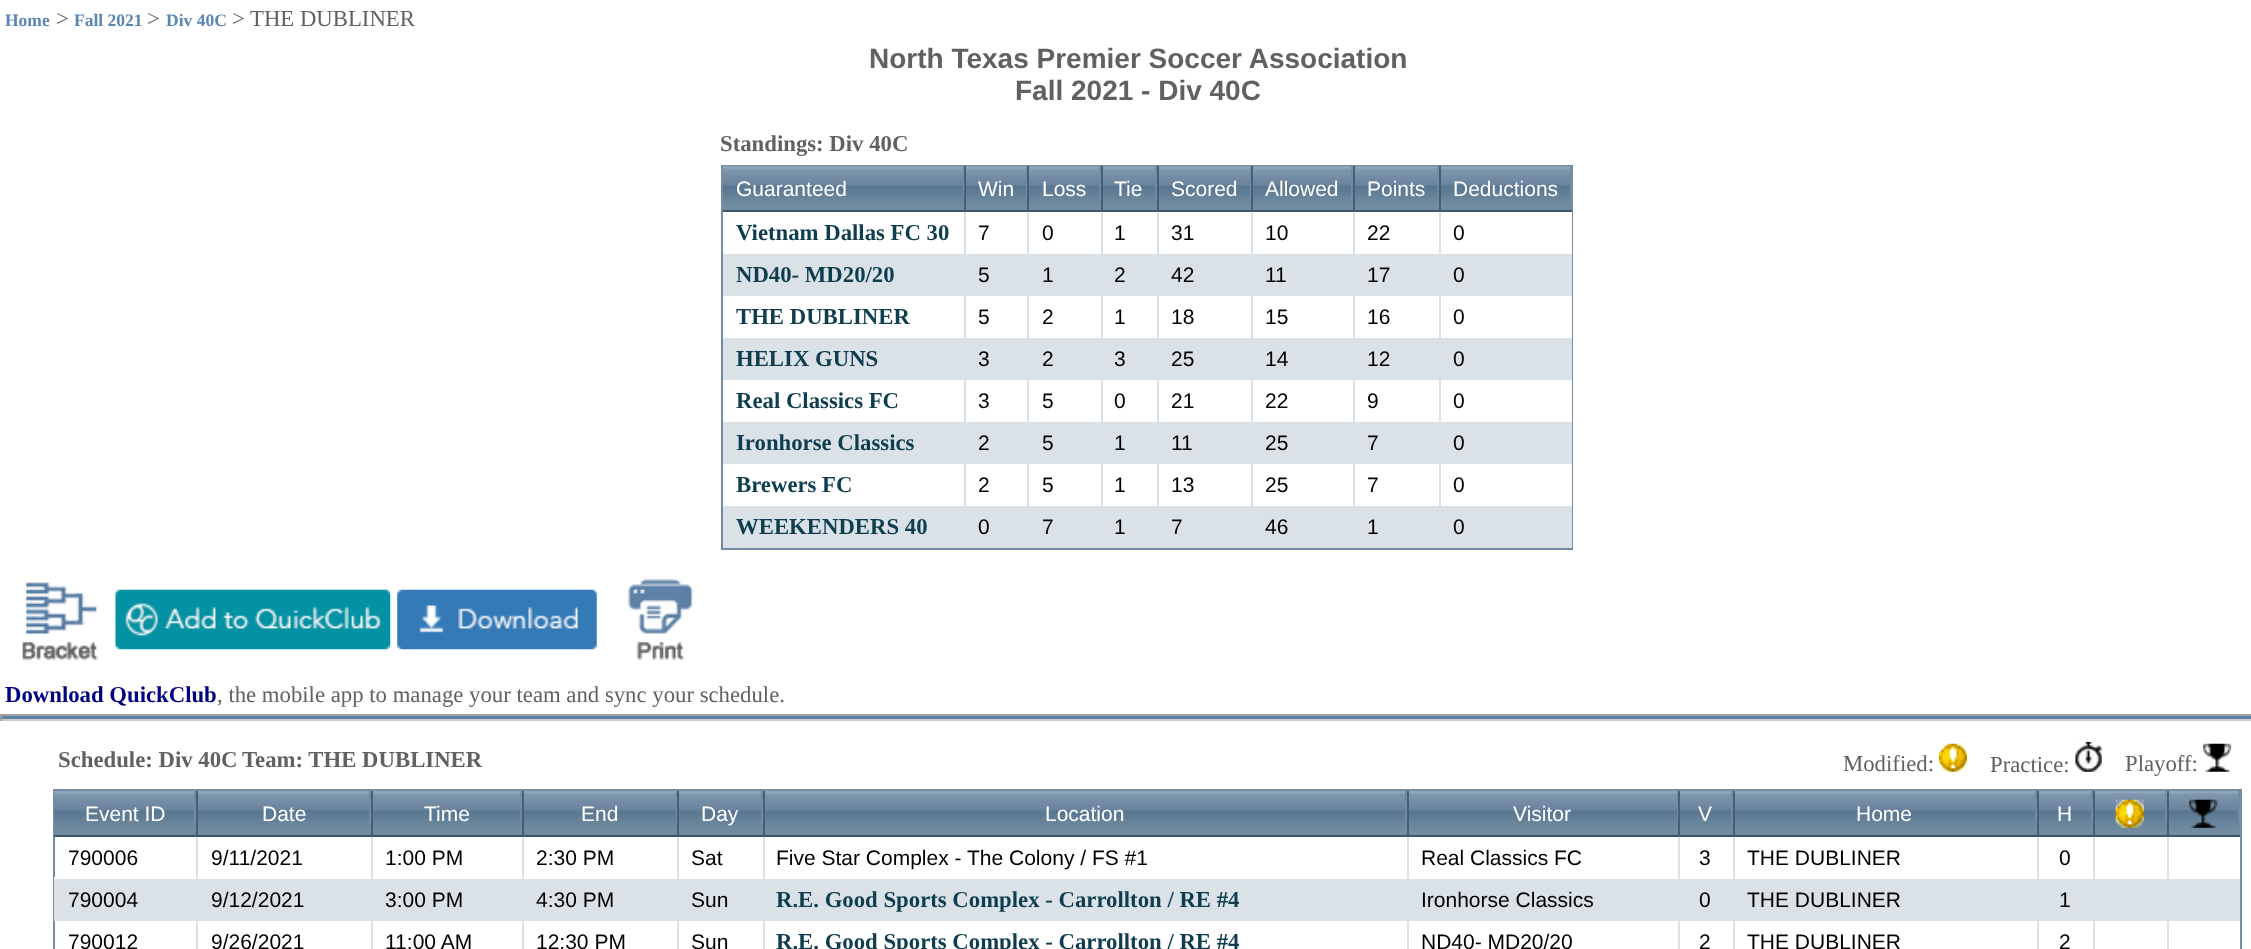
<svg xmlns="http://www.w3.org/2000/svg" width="2251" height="949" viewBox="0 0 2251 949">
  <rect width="100%" height="100%" fill="rgb(255,255,255)"/>
  <text x="5" y="26" font-family="Liberation Serif" font-size="17.5" font-weight="bold" fill="rgb(91,133,179)">Home</text>
  <text x="56" y="26" font-family="Liberation Serif" font-size="22.75" fill="rgb(97,97,97)">&gt;</text>
  <text x="74" y="26" font-family="Liberation Serif" font-size="17.5" font-weight="bold" fill="rgb(91,133,179)">Fall 2021</text>
  <text x="147" y="26" font-family="Liberation Serif" font-size="22.75" fill="rgb(97,97,97)">&gt;</text>
  <text x="166" y="26" font-family="Liberation Serif" font-size="17.5" font-weight="bold" fill="rgb(91,133,179)">Div 40C</text>
  <g font-family="Liberation Serif" font-size="22.75" fill="rgb(97,97,97)">
    <text x="232" y="26">&gt;</text>
    <text x="250" y="26">THE DUBLINER</text>
  </g>
  <g font-family="Liberation Sans" font-size="28" font-weight="bold" fill="rgb(97,97,97)">
    <text x="869" y="68">North Texas Premier Soccer Association</text>
    <text x="1015" y="100">Fall 2021 - Div 40C</text>
  </g>
  <text x="720" y="151" font-family="Liberation Serif" font-size="22.75" font-weight="bold" fill="rgb(97,97,97)">Standings: Div 40C</text>
  <rect x="722" y="166" width="850" height="383" fill="none" stroke="rgb(118,140,165)" stroke-width="2"/>
  <rect x="723" y="166" width="240" height="44" fill="rgb(113,140,161)"/>
  <image x="722" y="166" width="241" height="41" href="pic1.png"/>
  <rect x="963" y="166" width="1" height="46" fill="rgb(114,139,161)"/>
  <rect x="723" y="210" width="241" height="2" fill="rgb(61,85,108)"/>
  <text x="736" y="196" font-family="Liberation Sans" font-size="21" fill="rgb(255,255,255)">Guaranteed</text>
  <rect x="966" y="166" width="60" height="44" fill="rgb(113,140,161)"/>
  <image x="966" y="166" width="60" height="41" href="pic2.png"/>
  <rect x="1026" y="166" width="1" height="46" fill="rgb(114,139,161)"/>
  <rect x="964" y="210" width="63" height="2" fill="rgb(61,85,108)"/>
  <rect x="964" y="166" width="2" height="46" fill="rgb(69,95,119)"/>
  <text x="978" y="196" font-family="Liberation Sans" font-size="21" fill="rgb(255,255,255)">Win</text>
  <rect x="1029" y="166" width="70" height="44" fill="rgb(113,140,161)"/>
  <image x="1029" y="166" width="70" height="41" href="pic3.png"/>
  <rect x="1099" y="166" width="2" height="46" fill="rgb(114,139,161)"/>
  <rect x="1027" y="210" width="74" height="2" fill="rgb(61,85,108)"/>
  <rect x="1027" y="166" width="2" height="46" fill="rgb(69,95,119)"/>
  <text x="1042" y="196" font-family="Liberation Sans" font-size="21" fill="rgb(255,255,255)">Loss</text>
  <rect x="1103" y="166" width="52" height="44" fill="rgb(113,140,161)"/>
  <image x="1100" y="166" width="55" height="41" href="pic4.png"/>
  <rect x="1155" y="166" width="2" height="46" fill="rgb(114,139,161)"/>
  <rect x="1101" y="210" width="56" height="2" fill="rgb(61,85,108)"/>
  <rect x="1101" y="166" width="2" height="46" fill="rgb(69,95,119)"/>
  <text x="1114" y="196" font-family="Liberation Sans" font-size="21" fill="rgb(255,255,255)">Tie</text>
  <rect x="1159" y="166" width="91" height="44" fill="rgb(113,140,161)"/>
  <image x="1156" y="166" width="94" height="41" href="pic5.png"/>
  <rect x="1250" y="166" width="1" height="46" fill="rgb(114,139,161)"/>
  <rect x="1157" y="210" width="94" height="2" fill="rgb(61,85,108)"/>
  <rect x="1157" y="166" width="2" height="46" fill="rgb(69,95,119)"/>
  <text x="1171" y="196" font-family="Liberation Sans" font-size="21" fill="rgb(255,255,255)">Scored</text>
  <rect x="1253" y="166" width="98" height="44" fill="rgb(113,140,161)"/>
  <image x="1253" y="166" width="98" height="41" href="pic6.png"/>
  <rect x="1351" y="166" width="2" height="46" fill="rgb(114,139,161)"/>
  <rect x="1251" y="210" width="102" height="2" fill="rgb(61,85,108)"/>
  <rect x="1251" y="166" width="2" height="46" fill="rgb(69,95,119)"/>
  <text x="1265" y="196" font-family="Liberation Sans" font-size="21" fill="rgb(255,255,255)">Allowed</text>
  <rect x="1355" y="166" width="82" height="44" fill="rgb(113,140,161)"/>
  <image x="1352" y="166" width="85" height="41" href="pic7.png"/>
  <rect x="1437" y="166" width="2" height="46" fill="rgb(114,139,161)"/>
  <rect x="1353" y="210" width="86" height="2" fill="rgb(61,85,108)"/>
  <rect x="1353" y="166" width="2" height="46" fill="rgb(69,95,119)"/>
  <text x="1367" y="196" font-family="Liberation Sans" font-size="21" fill="rgb(255,255,255)">Points</text>
  <rect x="1441" y="166" width="129" height="44" fill="rgb(113,140,161)"/>
  <image x="1438" y="166" width="132" height="41" href="pic8.png"/>
  <rect x="1570" y="166" width="2" height="46" fill="rgb(114,139,161)"/>
  <rect x="1439" y="210" width="133" height="2" fill="rgb(61,85,108)"/>
  <rect x="1439" y="166" width="2" height="46" fill="rgb(69,95,119)"/>
  <text x="1453" y="196" font-family="Liberation Sans" font-size="21" fill="rgb(255,255,255)">Deductions</text>
  <text x="736" y="240" font-family="Liberation Serif" font-size="22.75" font-weight="bold" fill="rgb(14,61,79)">Vietnam Dallas FC 30</text>
  <rect x="964" y="212" width="2" height="42" fill="rgb(218,226,232)"/>
  <text x="978" y="240" font-family="Liberation Sans" font-size="21" fill="rgb(0,0,0)">7</text>
  <rect x="1027" y="212" width="2" height="42" fill="rgb(218,226,232)"/>
  <text x="1042" y="240" font-family="Liberation Sans" font-size="21" fill="rgb(0,0,0)">0</text>
  <rect x="1101" y="212" width="2" height="42" fill="rgb(218,226,232)"/>
  <text x="1114" y="240" font-family="Liberation Sans" font-size="21" fill="rgb(0,0,0)">1</text>
  <rect x="1157" y="212" width="2" height="42" fill="rgb(218,226,232)"/>
  <text x="1171" y="240" font-family="Liberation Sans" font-size="21" fill="rgb(0,0,0)">31</text>
  <rect x="1251" y="212" width="2" height="42" fill="rgb(218,226,232)"/>
  <text x="1265" y="240" font-family="Liberation Sans" font-size="21" fill="rgb(0,0,0)">10</text>
  <rect x="1353" y="212" width="2" height="42" fill="rgb(218,226,232)"/>
  <text x="1367" y="240" font-family="Liberation Sans" font-size="21" fill="rgb(0,0,0)">22</text>
  <rect x="1571" y="212" width="1" height="42" fill="rgb(255,255,255)"/>
  <rect x="1439" y="212" width="2" height="42" fill="rgb(218,226,232)"/>
  <text x="1453" y="240" font-family="Liberation Sans" font-size="21" fill="rgb(0,0,0)">0</text>
  <rect x="723" y="254" width="849" height="42" fill="rgb(218,226,232)"/>
  <text x="736" y="282" font-family="Liberation Serif" font-size="22.75" font-weight="bold" fill="rgb(14,61,79)">ND40- MD20/20</text>
  <g font-family="Liberation Sans" font-size="21" fill="rgb(0,0,0)">
    <text x="978" y="282">5</text>
    <text x="1042" y="282">1</text>
    <text x="1114" y="282">2</text>
    <text x="1171" y="282">42</text>
    <text x="1265" y="282">11</text>
    <text x="1367" y="282">17</text>
    <text x="1453" y="282">0</text>
  </g>
  <text x="736" y="324" font-family="Liberation Serif" font-size="22.75" font-weight="bold" fill="rgb(14,61,79)">THE DUBLINER</text>
  <rect x="964" y="296" width="2" height="42" fill="rgb(218,226,232)"/>
  <text x="978" y="324" font-family="Liberation Sans" font-size="21" fill="rgb(0,0,0)">5</text>
  <rect x="1027" y="296" width="2" height="42" fill="rgb(218,226,232)"/>
  <text x="1042" y="324" font-family="Liberation Sans" font-size="21" fill="rgb(0,0,0)">2</text>
  <rect x="1101" y="296" width="2" height="42" fill="rgb(218,226,232)"/>
  <text x="1114" y="324" font-family="Liberation Sans" font-size="21" fill="rgb(0,0,0)">1</text>
  <rect x="1157" y="296" width="2" height="42" fill="rgb(218,226,232)"/>
  <text x="1171" y="324" font-family="Liberation Sans" font-size="21" fill="rgb(0,0,0)">18</text>
  <rect x="1251" y="296" width="2" height="42" fill="rgb(218,226,232)"/>
  <text x="1265" y="324" font-family="Liberation Sans" font-size="21" fill="rgb(0,0,0)">15</text>
  <rect x="1353" y="296" width="2" height="42" fill="rgb(218,226,232)"/>
  <text x="1367" y="324" font-family="Liberation Sans" font-size="21" fill="rgb(0,0,0)">16</text>
  <rect x="1571" y="296" width="1" height="42" fill="rgb(255,255,255)"/>
  <rect x="1439" y="296" width="2" height="42" fill="rgb(218,226,232)"/>
  <text x="1453" y="324" font-family="Liberation Sans" font-size="21" fill="rgb(0,0,0)">0</text>
  <rect x="723" y="338" width="849" height="42" fill="rgb(218,226,232)"/>
  <text x="736" y="366" font-family="Liberation Serif" font-size="22.75" font-weight="bold" fill="rgb(14,61,79)">HELIX GUNS</text>
  <g font-family="Liberation Sans" font-size="21" fill="rgb(0,0,0)">
    <text x="978" y="366">3</text>
    <text x="1042" y="366">2</text>
    <text x="1114" y="366">3</text>
    <text x="1171" y="366">25</text>
    <text x="1265" y="366">14</text>
    <text x="1367" y="366">12</text>
    <text x="1453" y="366">0</text>
  </g>
  <text x="736" y="408" font-family="Liberation Serif" font-size="22.75" font-weight="bold" fill="rgb(14,61,79)">Real Classics FC</text>
  <rect x="964" y="380" width="2" height="42" fill="rgb(218,226,232)"/>
  <text x="978" y="408" font-family="Liberation Sans" font-size="21" fill="rgb(0,0,0)">3</text>
  <rect x="1027" y="380" width="2" height="42" fill="rgb(218,226,232)"/>
  <text x="1042" y="408" font-family="Liberation Sans" font-size="21" fill="rgb(0,0,0)">5</text>
  <rect x="1101" y="380" width="2" height="42" fill="rgb(218,226,232)"/>
  <text x="1114" y="408" font-family="Liberation Sans" font-size="21" fill="rgb(0,0,0)">0</text>
  <rect x="1157" y="380" width="2" height="42" fill="rgb(218,226,232)"/>
  <text x="1171" y="408" font-family="Liberation Sans" font-size="21" fill="rgb(0,0,0)">21</text>
  <rect x="1251" y="380" width="2" height="42" fill="rgb(218,226,232)"/>
  <text x="1265" y="408" font-family="Liberation Sans" font-size="21" fill="rgb(0,0,0)">22</text>
  <rect x="1353" y="380" width="2" height="42" fill="rgb(218,226,232)"/>
  <text x="1367" y="408" font-family="Liberation Sans" font-size="21" fill="rgb(0,0,0)">9</text>
  <rect x="1571" y="380" width="1" height="42" fill="rgb(255,255,255)"/>
  <rect x="1439" y="380" width="2" height="42" fill="rgb(218,226,232)"/>
  <text x="1453" y="408" font-family="Liberation Sans" font-size="21" fill="rgb(0,0,0)">0</text>
  <rect x="723" y="422" width="849" height="42" fill="rgb(218,226,232)"/>
  <text x="736" y="450" font-family="Liberation Serif" font-size="22.75" font-weight="bold" fill="rgb(14,61,79)">Ironhorse Classics</text>
  <g font-family="Liberation Sans" font-size="21" fill="rgb(0,0,0)">
    <text x="978" y="450">2</text>
    <text x="1042" y="450">5</text>
    <text x="1114" y="450">1</text>
    <text x="1171" y="450">11</text>
    <text x="1265" y="450">25</text>
    <text x="1367" y="450">7</text>
    <text x="1453" y="450">0</text>
  </g>
  <text x="736" y="492" font-family="Liberation Serif" font-size="22.75" font-weight="bold" fill="rgb(14,61,79)">Brewers FC</text>
  <rect x="964" y="464" width="2" height="42" fill="rgb(218,226,232)"/>
  <text x="978" y="492" font-family="Liberation Sans" font-size="21" fill="rgb(0,0,0)">2</text>
  <rect x="1027" y="464" width="2" height="42" fill="rgb(218,226,232)"/>
  <text x="1042" y="492" font-family="Liberation Sans" font-size="21" fill="rgb(0,0,0)">5</text>
  <rect x="1101" y="464" width="2" height="42" fill="rgb(218,226,232)"/>
  <text x="1114" y="492" font-family="Liberation Sans" font-size="21" fill="rgb(0,0,0)">1</text>
  <rect x="1157" y="464" width="2" height="42" fill="rgb(218,226,232)"/>
  <text x="1171" y="492" font-family="Liberation Sans" font-size="21" fill="rgb(0,0,0)">13</text>
  <rect x="1251" y="464" width="2" height="42" fill="rgb(218,226,232)"/>
  <text x="1265" y="492" font-family="Liberation Sans" font-size="21" fill="rgb(0,0,0)">25</text>
  <rect x="1353" y="464" width="2" height="42" fill="rgb(218,226,232)"/>
  <text x="1367" y="492" font-family="Liberation Sans" font-size="21" fill="rgb(0,0,0)">7</text>
  <rect x="1571" y="464" width="1" height="42" fill="rgb(255,255,255)"/>
  <rect x="1439" y="464" width="2" height="42" fill="rgb(218,226,232)"/>
  <text x="1453" y="492" font-family="Liberation Sans" font-size="21" fill="rgb(0,0,0)">0</text>
  <rect x="723" y="506" width="849" height="42" fill="rgb(218,226,232)"/>
  <text x="736" y="534" font-family="Liberation Serif" font-size="22.75" font-weight="bold" fill="rgb(14,61,79)">WEEKENDERS 40</text>
  <g font-family="Liberation Sans" font-size="21" fill="rgb(0,0,0)">
    <text x="978" y="534">0</text>
    <text x="1042" y="534">7</text>
    <text x="1114" y="534">1</text>
    <text x="1171" y="534">7</text>
    <text x="1265" y="534">46</text>
    <text x="1367" y="534">1</text>
    <text x="1453" y="534">0</text>
  </g>
  <image x="22" y="582" width="77" height="79" href="pic9.png"/>
  <image x="115" y="589" width="276" height="61" href="pic10.png"/>
  <image x="397" y="589" width="200" height="61" href="pic11.png"/>
  <image x="627" y="578" width="67" height="83" href="pic12.png"/>
  <text x="5" y="702" font-family="Liberation Serif" font-size="22.75" font-weight="bold" fill="rgb(0,0,128)">Download QuickClub</text>
  <text x="217" y="702" font-family="Liberation Serif" font-size="22.75" fill="rgb(97,97,97)">, the mobile app to manage your team and sync your schedule.</text>
  <rect x="0" y="716" width="2251" height="3" fill="rgb(93,128,166)"/>
  <rect x="0" y="714" width="2251" height="2" fill="rgb(159,159,159)"/>
  <rect x="0" y="719" width="2251" height="2" fill="rgb(204,204,204)"/>
  <rect x="0" y="714" width="2" height="7" fill="rgb(159,159,159)"/>
  <g font-family="Liberation Serif" font-size="22.75" font-weight="bold" fill="rgb(97,97,97)">
    <text x="58" y="767">Schedule: Div 40C</text>
    <text x="242" y="767">Team: THE DUBLINER</text>
  </g>
  <text x="1843" y="771" font-family="Liberation Serif" font-size="22.75" fill="rgb(97,97,97)">Modified:</text>
  <image x="1939" y="743" width="28" height="29" href="pic13.png"/>
  <text x="1990" y="772" font-family="Liberation Serif" font-size="22.75" fill="rgb(97,97,97)">Practice:</text>
  <image x="2075" y="742" width="27" height="30" href="pic14.png"/>
  <text x="2125" y="771" font-family="Liberation Serif" font-size="22.75" fill="rgb(97,97,97)">Playoff:</text>
  <image x="2203" y="743" width="29" height="29" href="pic15.png"/>
  <rect x="54" y="790" width="2187" height="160" fill="none" stroke="rgb(118,140,165)" stroke-width="2"/>
  <rect x="54" y="791" width="140" height="44" fill="rgb(113,140,161)"/>
  <image x="54" y="791" width="140" height="41" href="pic16.png"/>
  <rect x="194" y="791" width="2" height="46" fill="rgb(114,139,161)"/>
  <rect x="54" y="835" width="142" height="2" fill="rgb(61,85,108)"/>
  <text x="85" y="821" font-family="Liberation Sans" font-size="21" fill="rgb(255,255,255)">Event ID</text>
  <rect x="198" y="791" width="171" height="44" fill="rgb(113,140,161)"/>
  <image x="198" y="791" width="171" height="41" href="pic17.png"/>
  <rect x="369" y="791" width="2" height="46" fill="rgb(114,139,161)"/>
  <rect x="196" y="835" width="175" height="2" fill="rgb(61,85,108)"/>
  <rect x="196" y="791" width="2" height="46" fill="rgb(69,95,119)"/>
  <text x="262" y="821" font-family="Liberation Sans" font-size="21" fill="rgb(255,255,255)">Date</text>
  <rect x="373" y="791" width="147" height="44" fill="rgb(113,140,161)"/>
  <image x="373" y="791" width="147" height="41" href="pic18.png"/>
  <rect x="520" y="791" width="2" height="46" fill="rgb(114,139,161)"/>
  <rect x="371" y="835" width="151" height="2" fill="rgb(61,85,108)"/>
  <rect x="371" y="791" width="2" height="46" fill="rgb(69,95,119)"/>
  <text x="424" y="821" font-family="Liberation Sans" font-size="21" fill="rgb(255,255,255)">Time</text>
  <rect x="524" y="791" width="152" height="44" fill="rgb(113,140,161)"/>
  <image x="521" y="791" width="155" height="41" href="pic19.png"/>
  <rect x="676" y="791" width="1" height="46" fill="rgb(114,139,161)"/>
  <rect x="522" y="835" width="155" height="2" fill="rgb(61,85,108)"/>
  <rect x="522" y="791" width="2" height="46" fill="rgb(69,95,119)"/>
  <text x="581" y="821" font-family="Liberation Sans" font-size="21" fill="rgb(255,255,255)">End</text>
  <rect x="679" y="791" width="82" height="44" fill="rgb(113,140,161)"/>
  <image x="679" y="791" width="82" height="41" href="pic20.png"/>
  <rect x="761" y="791" width="2" height="46" fill="rgb(114,139,161)"/>
  <rect x="677" y="835" width="86" height="2" fill="rgb(61,85,108)"/>
  <rect x="677" y="791" width="2" height="46" fill="rgb(69,95,119)"/>
  <text x="701" y="821" font-family="Liberation Sans" font-size="21" fill="rgb(255,255,255)">Day</text>
  <rect x="765" y="791" width="640" height="44" fill="rgb(113,140,161)"/>
  <image x="765" y="791" width="640" height="41" href="pic21.png"/>
  <rect x="1405" y="791" width="2" height="46" fill="rgb(114,139,161)"/>
  <rect x="763" y="835" width="644" height="2" fill="rgb(61,85,108)"/>
  <rect x="763" y="791" width="2" height="46" fill="rgb(69,95,119)"/>
  <text x="1045" y="821" font-family="Liberation Sans" font-size="21" fill="rgb(255,255,255)">Location</text>
  <rect x="1409" y="791" width="268" height="44" fill="rgb(113,140,161)"/>
  <image x="1409" y="791" width="268" height="41" href="pic22.png"/>
  <rect x="1677" y="791" width="1" height="46" fill="rgb(114,139,161)"/>
  <rect x="1407" y="835" width="271" height="2" fill="rgb(61,85,108)"/>
  <rect x="1407" y="791" width="2" height="46" fill="rgb(69,95,119)"/>
  <text x="1513" y="821" font-family="Liberation Sans" font-size="21" fill="rgb(255,255,255)">Visitor</text>
  <rect x="1680" y="791" width="51" height="44" fill="rgb(113,140,161)"/>
  <image x="1680" y="791" width="51" height="41" href="pic23.png"/>
  <rect x="1731" y="791" width="2" height="46" fill="rgb(114,139,161)"/>
  <rect x="1678" y="835" width="55" height="2" fill="rgb(61,85,108)"/>
  <rect x="1678" y="791" width="2" height="46" fill="rgb(69,95,119)"/>
  <text x="1698" y="821" font-family="Liberation Sans" font-size="21" fill="rgb(255,255,255)">V</text>
  <rect x="1735" y="791" width="300" height="44" fill="rgb(113,140,161)"/>
  <image x="1732" y="791" width="303" height="41" href="pic24.png"/>
  <rect x="2035" y="791" width="2" height="46" fill="rgb(114,139,161)"/>
  <rect x="1733" y="835" width="304" height="2" fill="rgb(61,85,108)"/>
  <rect x="1733" y="791" width="2" height="46" fill="rgb(69,95,119)"/>
  <text x="1856" y="821" font-family="Liberation Sans" font-size="21" fill="rgb(255,255,255)">Home</text>
  <rect x="2039" y="791" width="52" height="44" fill="rgb(113,140,161)"/>
  <image x="2039" y="791" width="52" height="41" href="pic25.png"/>
  <rect x="2091" y="791" width="2" height="46" fill="rgb(114,139,161)"/>
  <rect x="2037" y="835" width="56" height="2" fill="rgb(61,85,108)"/>
  <rect x="2037" y="791" width="2" height="46" fill="rgb(69,95,119)"/>
  <text x="2057" y="821" font-family="Liberation Sans" font-size="21" fill="rgb(255,255,255)">H</text>
  <rect x="2095" y="791" width="70" height="44" fill="rgb(113,140,161)"/>
  <image x="2095" y="791" width="70" height="41" href="pic26.png"/>
  <rect x="2165" y="791" width="2" height="46" fill="rgb(114,139,161)"/>
  <rect x="2093" y="835" width="74" height="2" fill="rgb(61,85,108)"/>
  <rect x="2093" y="791" width="2" height="46" fill="rgb(69,95,119)"/>
  <image x="2115" y="799" width="29" height="29" href="pic27.png"/>
  <rect x="2169" y="791" width="69" height="44" fill="rgb(113,140,161)"/>
  <image x="2166" y="791" width="72" height="41" href="pic28.png"/>
  <rect x="2238" y="791" width="2" height="46" fill="rgb(114,139,161)"/>
  <rect x="2167" y="835" width="73" height="2" fill="rgb(61,85,108)"/>
  <rect x="2167" y="791" width="2" height="46" fill="rgb(69,95,119)"/>
  <image x="2189" y="799" width="29" height="29" href="pic29.png"/>
  <rect x="54" y="877" width="1" height="2" fill="rgb(255,255,255)"/>
  <text x="68" y="865" font-family="Liberation Sans" font-size="21" fill="rgb(0,0,0)">790006</text>
  <rect x="196" y="837" width="2" height="42" fill="rgb(218,226,232)"/>
  <text x="211" y="865" font-family="Liberation Sans" font-size="21" fill="rgb(0,0,0)">9/11/2021</text>
  <rect x="371" y="837" width="2" height="42" fill="rgb(218,226,232)"/>
  <text x="385" y="865" font-family="Liberation Sans" font-size="21" fill="rgb(0,0,0)">1:00 PM</text>
  <rect x="522" y="837" width="2" height="42" fill="rgb(218,226,232)"/>
  <text x="536" y="865" font-family="Liberation Sans" font-size="21" fill="rgb(0,0,0)">2:30 PM</text>
  <rect x="677" y="837" width="2" height="42" fill="rgb(218,226,232)"/>
  <text x="691" y="865" font-family="Liberation Sans" font-size="21" fill="rgb(0,0,0)">Sat</text>
  <rect x="763" y="837" width="2" height="42" fill="rgb(218,226,232)"/>
  <text x="776" y="865" font-family="Liberation Sans" font-size="21" fill="rgb(0,0,0)">Five Star Complex - The Colony / FS #1</text>
  <rect x="1407" y="837" width="2" height="42" fill="rgb(218,226,232)"/>
  <text x="1421" y="865" font-family="Liberation Sans" font-size="21" fill="rgb(0,0,0)">Real Classics FC</text>
  <rect x="1678" y="837" width="2" height="42" fill="rgb(218,226,232)"/>
  <text x="1699" y="865" font-family="Liberation Sans" font-size="21" fill="rgb(0,0,0)">3</text>
  <rect x="1733" y="837" width="2" height="42" fill="rgb(218,226,232)"/>
  <text x="1747" y="865" font-family="Liberation Sans" font-size="21" fill="rgb(0,0,0)">THE DUBLINER</text>
  <rect x="2037" y="837" width="2" height="42" fill="rgb(218,226,232)"/>
  <text x="2059" y="865" font-family="Liberation Sans" font-size="21" fill="rgb(0,0,0)">0</text>
  <rect x="2093" y="837" width="2" height="42" fill="rgb(218,226,232)"/>
  <rect x="2167" y="837" width="2" height="42" fill="rgb(218,226,232)"/>
  <rect x="54" y="879" width="2186" height="42" fill="rgb(218,226,232)"/>
  <g font-family="Liberation Sans" font-size="21" fill="rgb(0,0,0)">
    <text x="68" y="907">790004</text>
    <text x="211" y="907">9/12/2021</text>
    <text x="385" y="907">3:00 PM</text>
    <text x="536" y="907">4:30 PM</text>
    <text x="691" y="907">Sun</text>
  </g>
  <text x="776" y="907" font-family="Liberation Serif" font-size="22.75" font-weight="bold" fill="rgb(14,61,79)">R.E. Good Sports Complex - Carrollton / RE #4</text>
  <g font-family="Liberation Sans" font-size="21" fill="rgb(0,0,0)">
    <text x="1421" y="907">Ironhorse Classics</text>
    <text x="1699" y="907">0</text>
    <text x="1747" y="907">THE DUBLINER</text>
    <text x="2059" y="907">1</text>
    <text x="68" y="949">790012</text>
  </g>
  <rect x="196" y="921" width="2" height="28" fill="rgb(218,226,232)"/>
  <text x="211" y="949" font-family="Liberation Sans" font-size="21" fill="rgb(0,0,0)">9/26/2021</text>
  <rect x="371" y="921" width="2" height="28" fill="rgb(218,226,232)"/>
  <text x="385" y="949" font-family="Liberation Sans" font-size="21" fill="rgb(0,0,0)">11:00 AM</text>
  <rect x="522" y="921" width="2" height="28" fill="rgb(218,226,232)"/>
  <text x="536" y="949" font-family="Liberation Sans" font-size="21" fill="rgb(0,0,0)">12:30 PM</text>
  <rect x="677" y="921" width="2" height="28" fill="rgb(218,226,232)"/>
  <text x="691" y="949" font-family="Liberation Sans" font-size="21" fill="rgb(0,0,0)">Sun</text>
  <rect x="763" y="921" width="2" height="28" fill="rgb(218,226,232)"/>
  <text x="776" y="949" font-family="Liberation Serif" font-size="22.75" font-weight="bold" fill="rgb(14,61,79)">R.E. Good Sports Complex - Carrollton / RE #4</text>
  <rect x="1407" y="921" width="2" height="28" fill="rgb(218,226,232)"/>
  <text x="1421" y="949" font-family="Liberation Sans" font-size="21" fill="rgb(0,0,0)">ND40- MD20/20</text>
  <rect x="1678" y="921" width="2" height="28" fill="rgb(218,226,232)"/>
  <text x="1699" y="949" font-family="Liberation Sans" font-size="21" fill="rgb(0,0,0)">2</text>
  <rect x="1733" y="921" width="2" height="28" fill="rgb(218,226,232)"/>
  <text x="1747" y="949" font-family="Liberation Sans" font-size="21" fill="rgb(0,0,0)">THE DUBLINER</text>
  <rect x="2037" y="921" width="2" height="28" fill="rgb(218,226,232)"/>
  <text x="2059" y="949" font-family="Liberation Sans" font-size="21" fill="rgb(0,0,0)">2</text>
  <rect x="2093" y="921" width="2" height="28" fill="rgb(218,226,232)"/>
  <rect x="2167" y="921" width="2" height="28" fill="rgb(218,226,232)"/>
</svg>
